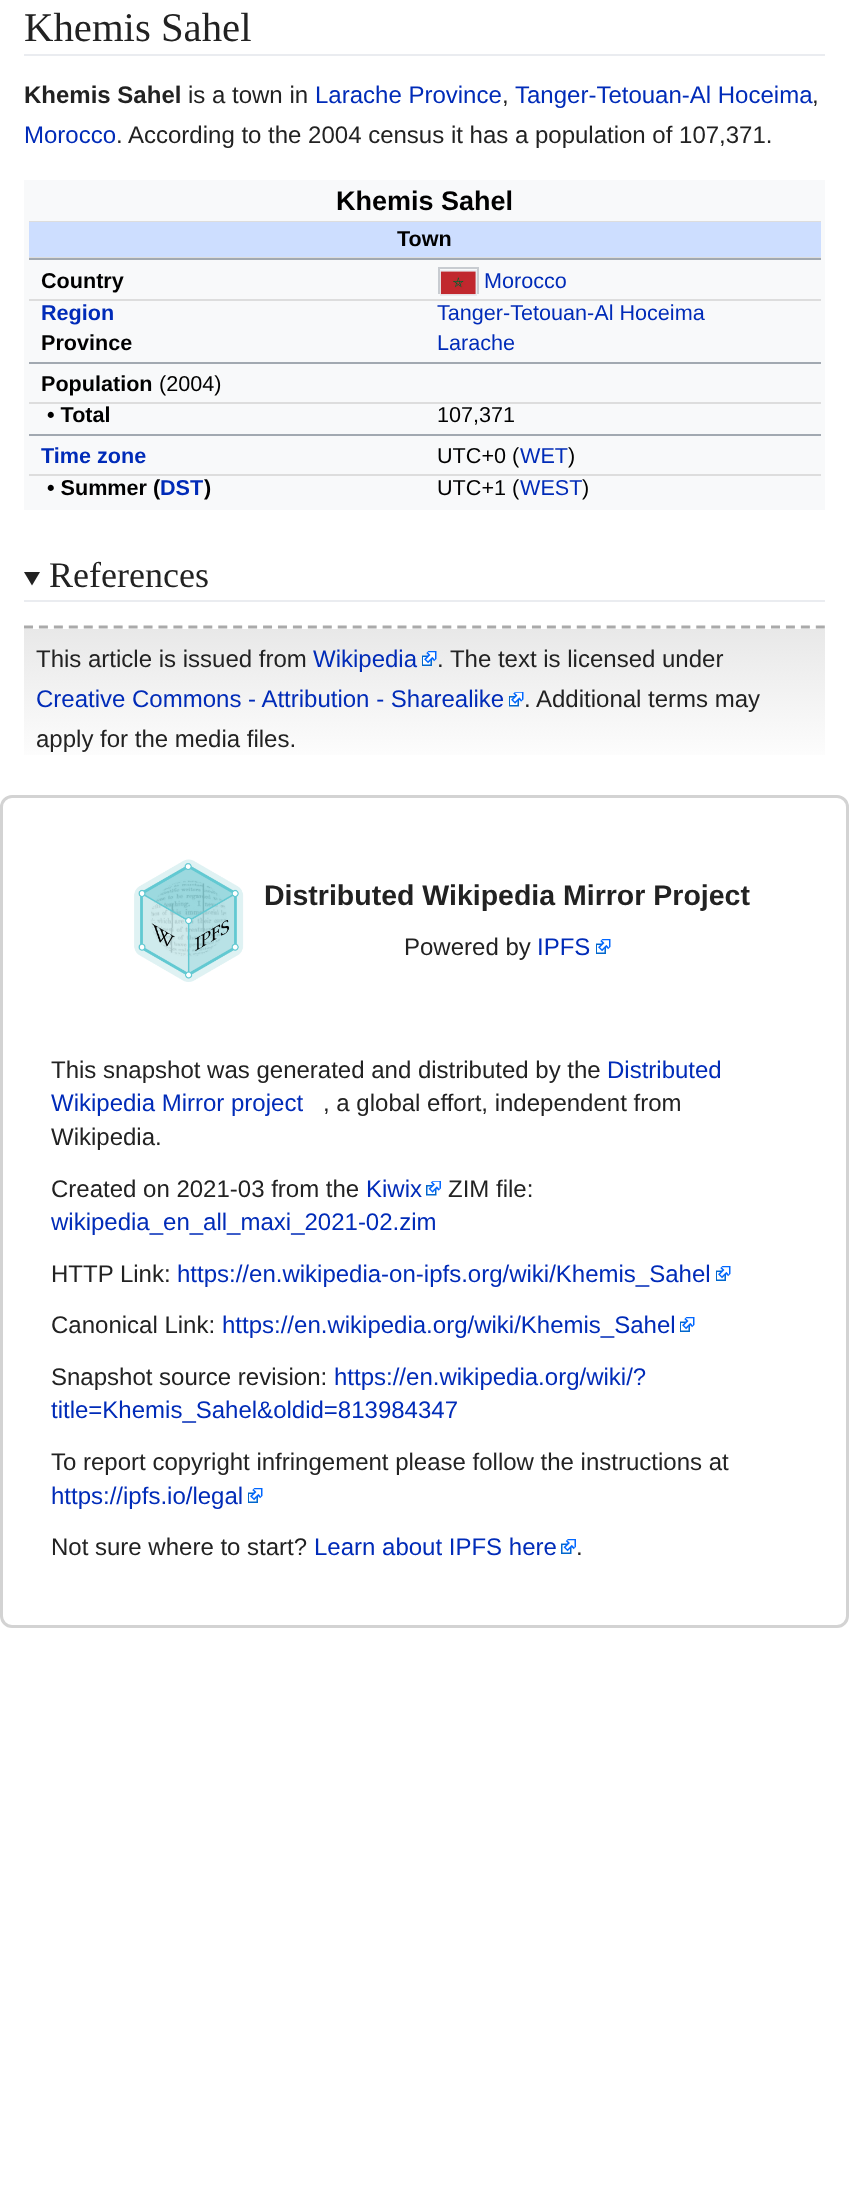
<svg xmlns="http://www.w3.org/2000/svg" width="849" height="2211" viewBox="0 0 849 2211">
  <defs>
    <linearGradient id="g1" gradientUnits="userSpaceOnUse" x1="425" y1="628" x2="425" y2="771"><stop offset="0" stop-color="rgb(232,232,232)"/><stop offset="1" stop-color="rgb(255,255,255)"/></linearGradient>
  </defs>
  <rect width="100%" height="100%" fill="rgb(255,255,255)"/>
  <rect x="24" y="54" width="801" height="2" fill="rgb(234,236,240)"/>
  <text x="24" y="41" font-family="Liberation Serif" font-size="40.75" fill="rgb(34,34,34)">Khemis Sahel</text>
  <text x="24" y="103" font-family="Liberation Sans" font-size="24" font-weight="bold" fill="rgb(34,34,34)">Khemis Sahel</text>
  <text x="188" y="103" font-family="Liberation Sans" font-size="24" fill="rgb(34,34,34)">is a town in</text>
  <text x="315" y="103" font-family="Liberation Sans" font-size="24" fill="rgb(0,43,184)">Larache Province</text>
  <text x="502" y="103" font-family="Liberation Sans" font-size="24" fill="rgb(34,34,34)">,</text>
  <text x="515" y="103" font-family="Liberation Sans" font-size="24" fill="rgb(0,43,184)">Tanger-Tetouan-Al Hoceima</text>
  <text x="812" y="103" font-family="Liberation Sans" font-size="24" fill="rgb(34,34,34)">,</text>
  <text x="24" y="143" font-family="Liberation Sans" font-size="24" fill="rgb(0,43,184)">Morocco</text>
  <text x="116" y="143" font-family="Liberation Sans" font-size="24" fill="rgb(34,34,34)">. According to the 2004 census it has a population of 107,371.</text>
  <rect x="24" y="180" width="801" height="330" fill="rgb(248,249,250)"/>
  <rect x="29" y="221" width="792" height="1" fill="rgb(221,221,221)"/>
  <text x="336" y="210" font-family="Liberation Sans" font-size="27" font-weight="bold" fill="rgb(0,0,0)">Khemis Sahel</text>
  <rect x="29" y="222" width="792" height="35" fill="rgb(205,222,255)"/>
  <rect x="29" y="257" width="792" height="1" fill="rgb(221,221,221)"/>
  <text x="397" y="246" font-family="Liberation Sans" font-size="21.6" font-weight="bold" fill="rgb(0,0,0)">Town</text>
  <rect x="29" y="258" width="792" height="2" fill="rgb(162,169,177)"/>
  <rect x="29" y="299" width="792" height="2" fill="rgb(221,221,221)"/>
  <text x="41" y="288" font-family="Liberation Sans" font-size="21.6" font-weight="bold" fill="rgb(0,0,0)">Country</text>
  <rect x="439" y="268" width="39" height="25" fill="none" stroke="rgb(200,204,209)" stroke-width="2"/>
  <rect x="441" y="271" width="35" height="24" fill="none" stroke="rgb(234,236,240)" stroke-width="2"/>
  <image x="440" y="271" width="36" height="24" href="pic1.png"/>
  <text x="484" y="288" font-family="Liberation Sans" font-size="21.6" fill="rgb(0,43,184)">Morocco</text>
  <text x="41" y="320" font-family="Liberation Sans" font-size="21.6" font-weight="bold" fill="rgb(0,43,184)">Region</text>
  <text x="437" y="320" font-family="Liberation Sans" font-size="21.6" fill="rgb(0,43,184)">Tanger-Tetouan-Al Hoceima</text>
  <text x="41" y="350" font-family="Liberation Sans" font-size="21.6" font-weight="bold" fill="rgb(0,0,0)">Province</text>
  <text x="437" y="350" font-family="Liberation Sans" font-size="21.6" fill="rgb(0,43,184)">Larache</text>
  <rect x="29" y="362" width="792" height="2" fill="rgb(162,169,177)"/>
  <rect x="29" y="402" width="792" height="2" fill="rgb(221,221,221)"/>
  <text x="41" y="391" font-family="Liberation Sans" font-size="21.6" font-weight="bold" fill="rgb(0,0,0)">Population</text>
  <text x="159" y="391" font-family="Liberation Sans" font-size="21.6" fill="rgb(0,0,0)">(2004)</text>
  <text x="47" y="422" font-family="Liberation Sans" font-size="21.6" font-weight="bold" fill="rgb(0,0,0)">• Total</text>
  <text x="437" y="422" font-family="Liberation Sans" font-size="21.6" fill="rgb(0,0,0)">107,371</text>
  <rect x="29" y="434" width="792" height="2" fill="rgb(162,169,177)"/>
  <rect x="29" y="474" width="792" height="2" fill="rgb(221,221,221)"/>
  <text x="41" y="463" font-family="Liberation Sans" font-size="21.6" font-weight="bold" fill="rgb(0,43,184)">Time zone</text>
  <text x="437" y="463" font-family="Liberation Sans" font-size="21.6" fill="rgb(0,0,0)">UTC+0 (</text>
  <text x="520" y="463" font-family="Liberation Sans" font-size="21.6" fill="rgb(0,43,184)">WET</text>
  <text x="568" y="463" font-family="Liberation Sans" font-size="21.6" fill="rgb(0,0,0)">)</text>
  <text x="47" y="495" font-family="Liberation Sans" font-size="21.6" font-weight="bold" fill="rgb(0,0,0)">• Summer (</text>
  <text x="160" y="495" font-family="Liberation Sans" font-size="21.6" font-weight="bold" fill="rgb(0,43,184)">DST</text>
  <text x="204" y="495" font-family="Liberation Sans" font-size="21.6" font-weight="bold" fill="rgb(0,0,0)">)</text>
  <text x="437" y="495" font-family="Liberation Sans" font-size="21.6" fill="rgb(0,0,0)">UTC+1 (</text>
  <text x="520" y="495" font-family="Liberation Sans" font-size="21.6" fill="rgb(0,43,184)">WEST</text>
  <text x="582" y="495" font-family="Liberation Sans" font-size="21.6" fill="rgb(0,0,0)">)</text>
  <rect x="24" y="600" width="801" height="2" fill="rgb(234,236,240)"/>
  <path d="M24 572H40L32 585.5Z" fill="rgb(34,34,34)"/>
  <text x="49" y="587" font-family="Liberation Serif" font-size="36" fill="rgb(34,34,34)">References</text>
  <rect x="24" y="629" width="801" height="126" fill="url(#g1)"/>
  <path d="M24 627H825" fill="none" stroke="rgb(170,170,170)" stroke-width="3" stroke-dasharray="9 5.94"/>
  <text x="36" y="667" font-family="Liberation Sans" font-size="24" fill="rgb(34,34,34)">This article is issued from</text>
  <text x="313" y="667" font-family="Liberation Sans" font-size="24" fill="rgb(0,43,184)">Wikipedia</text>
  <image x="422" y="651" width="15" height="15" href="pic2.png"/>
  <text x="437" y="667" font-family="Liberation Sans" font-size="24" fill="rgb(34,34,34)">. The text is licensed under</text>
  <text x="36" y="707" font-family="Liberation Sans" font-size="24" fill="rgb(0,43,184)">Creative Commons - Attribution - Sharealike</text>
  <image x="509" y="692" width="15" height="15" href="pic3.png"/>
  <g font-family="Liberation Sans" font-size="24" fill="rgb(34,34,34)">
    <text x="524" y="707">. Additional terms may</text>
    <text x="36" y="747">apply for the media files.</text>
  </g>
  <rect x="1.5" y="796.5" width="846" height="830" rx="10.5" fill="none" stroke="rgb(211,211,211)" stroke-width="3"/>
  <image x="134" y="859" width="110" height="123" href="pic4.png"/>
  <text x="264" y="905" font-family="Liberation Sans" font-size="28.5" font-weight="bold" fill="rgb(34,34,34)">Distributed Wikipedia Mirror Project</text>
  <text x="404" y="955" font-family="Liberation Sans" font-size="24" fill="rgb(34,34,34)">Powered by</text>
  <text x="537" y="955" font-family="Liberation Sans" font-size="24" fill="rgb(0,43,184)">IPFS</text>
  <image x="596" y="939" width="15" height="15" href="pic5.png"/>
  <text x="51" y="1078" font-family="Liberation Sans" font-size="24" fill="rgb(34,34,34)">This snapshot was generated and distributed by the</text>
  <g font-family="Liberation Sans" font-size="24" fill="rgb(0,43,184)">
    <text x="607" y="1078">Distributed</text>
    <text x="51" y="1111">Wikipedia Mirror project</text>
  </g>
  <g font-family="Liberation Sans" font-size="24" fill="rgb(34,34,34)">
    <text x="323" y="1111">, a global effort, independent from</text>
    <text x="51" y="1145">Wikipedia.</text>
    <text x="51" y="1197">Created on 2021-03 from the</text>
  </g>
  <text x="366" y="1197" font-family="Liberation Sans" font-size="24" fill="rgb(0,43,184)">Kiwix</text>
  <image x="426" y="1181" width="15" height="15" href="pic6.png"/>
  <text x="448" y="1197" font-family="Liberation Sans" font-size="24" fill="rgb(34,34,34)">ZIM file:</text>
  <text x="51" y="1230" font-family="Liberation Sans" font-size="24" fill="rgb(0,43,184)">wikipedia_en_all_maxi_2021-02.zim</text>
  <text x="51" y="1282" font-family="Liberation Sans" font-size="24" fill="rgb(34,34,34)">HTTP Link:</text>
  <text x="177" y="1282" font-family="Liberation Sans" font-size="24" fill="rgb(0,43,184)">https://en.wikipedia-on-ipfs.org/wiki/Khemis_Sahel</text>
  <image x="716" y="1266" width="15" height="15" href="pic5.png"/>
  <text x="51" y="1333" font-family="Liberation Sans" font-size="24" fill="rgb(34,34,34)">Canonical Link:</text>
  <text x="222" y="1333" font-family="Liberation Sans" font-size="24" fill="rgb(0,43,184)">https://en.wikipedia.org/wiki/Khemis_Sahel</text>
  <image x="680" y="1317" width="15" height="15" href="pic5.png"/>
  <text x="51" y="1385" font-family="Liberation Sans" font-size="24" fill="rgb(34,34,34)">Snapshot source revision:</text>
  <g font-family="Liberation Sans" font-size="24" fill="rgb(0,43,184)">
    <text x="334" y="1385">https://en.wikipedia.org/wiki/?</text>
    <text x="51" y="1418">title=Khemis_Sahel&amp;oldid=813984347</text>
  </g>
  <text x="51" y="1470" font-family="Liberation Sans" font-size="24" fill="rgb(34,34,34)">To report copyright infringement please follow the instructions at</text>
  <text x="51" y="1504" font-family="Liberation Sans" font-size="24" fill="rgb(0,43,184)">https://ipfs.io/legal</text>
  <image x="248" y="1488" width="15" height="15" href="pic5.png"/>
  <text x="51" y="1555" font-family="Liberation Sans" font-size="24" fill="rgb(34,34,34)">Not sure where to start?</text>
  <text x="314" y="1555" font-family="Liberation Sans" font-size="24" fill="rgb(0,43,184)">Learn about IPFS here</text>
  <image x="561" y="1539" width="15" height="15" href="pic7.png"/>
  <text x="576" y="1555" font-family="Liberation Sans" font-size="24" fill="rgb(34,34,34)">.</text>
</svg>
